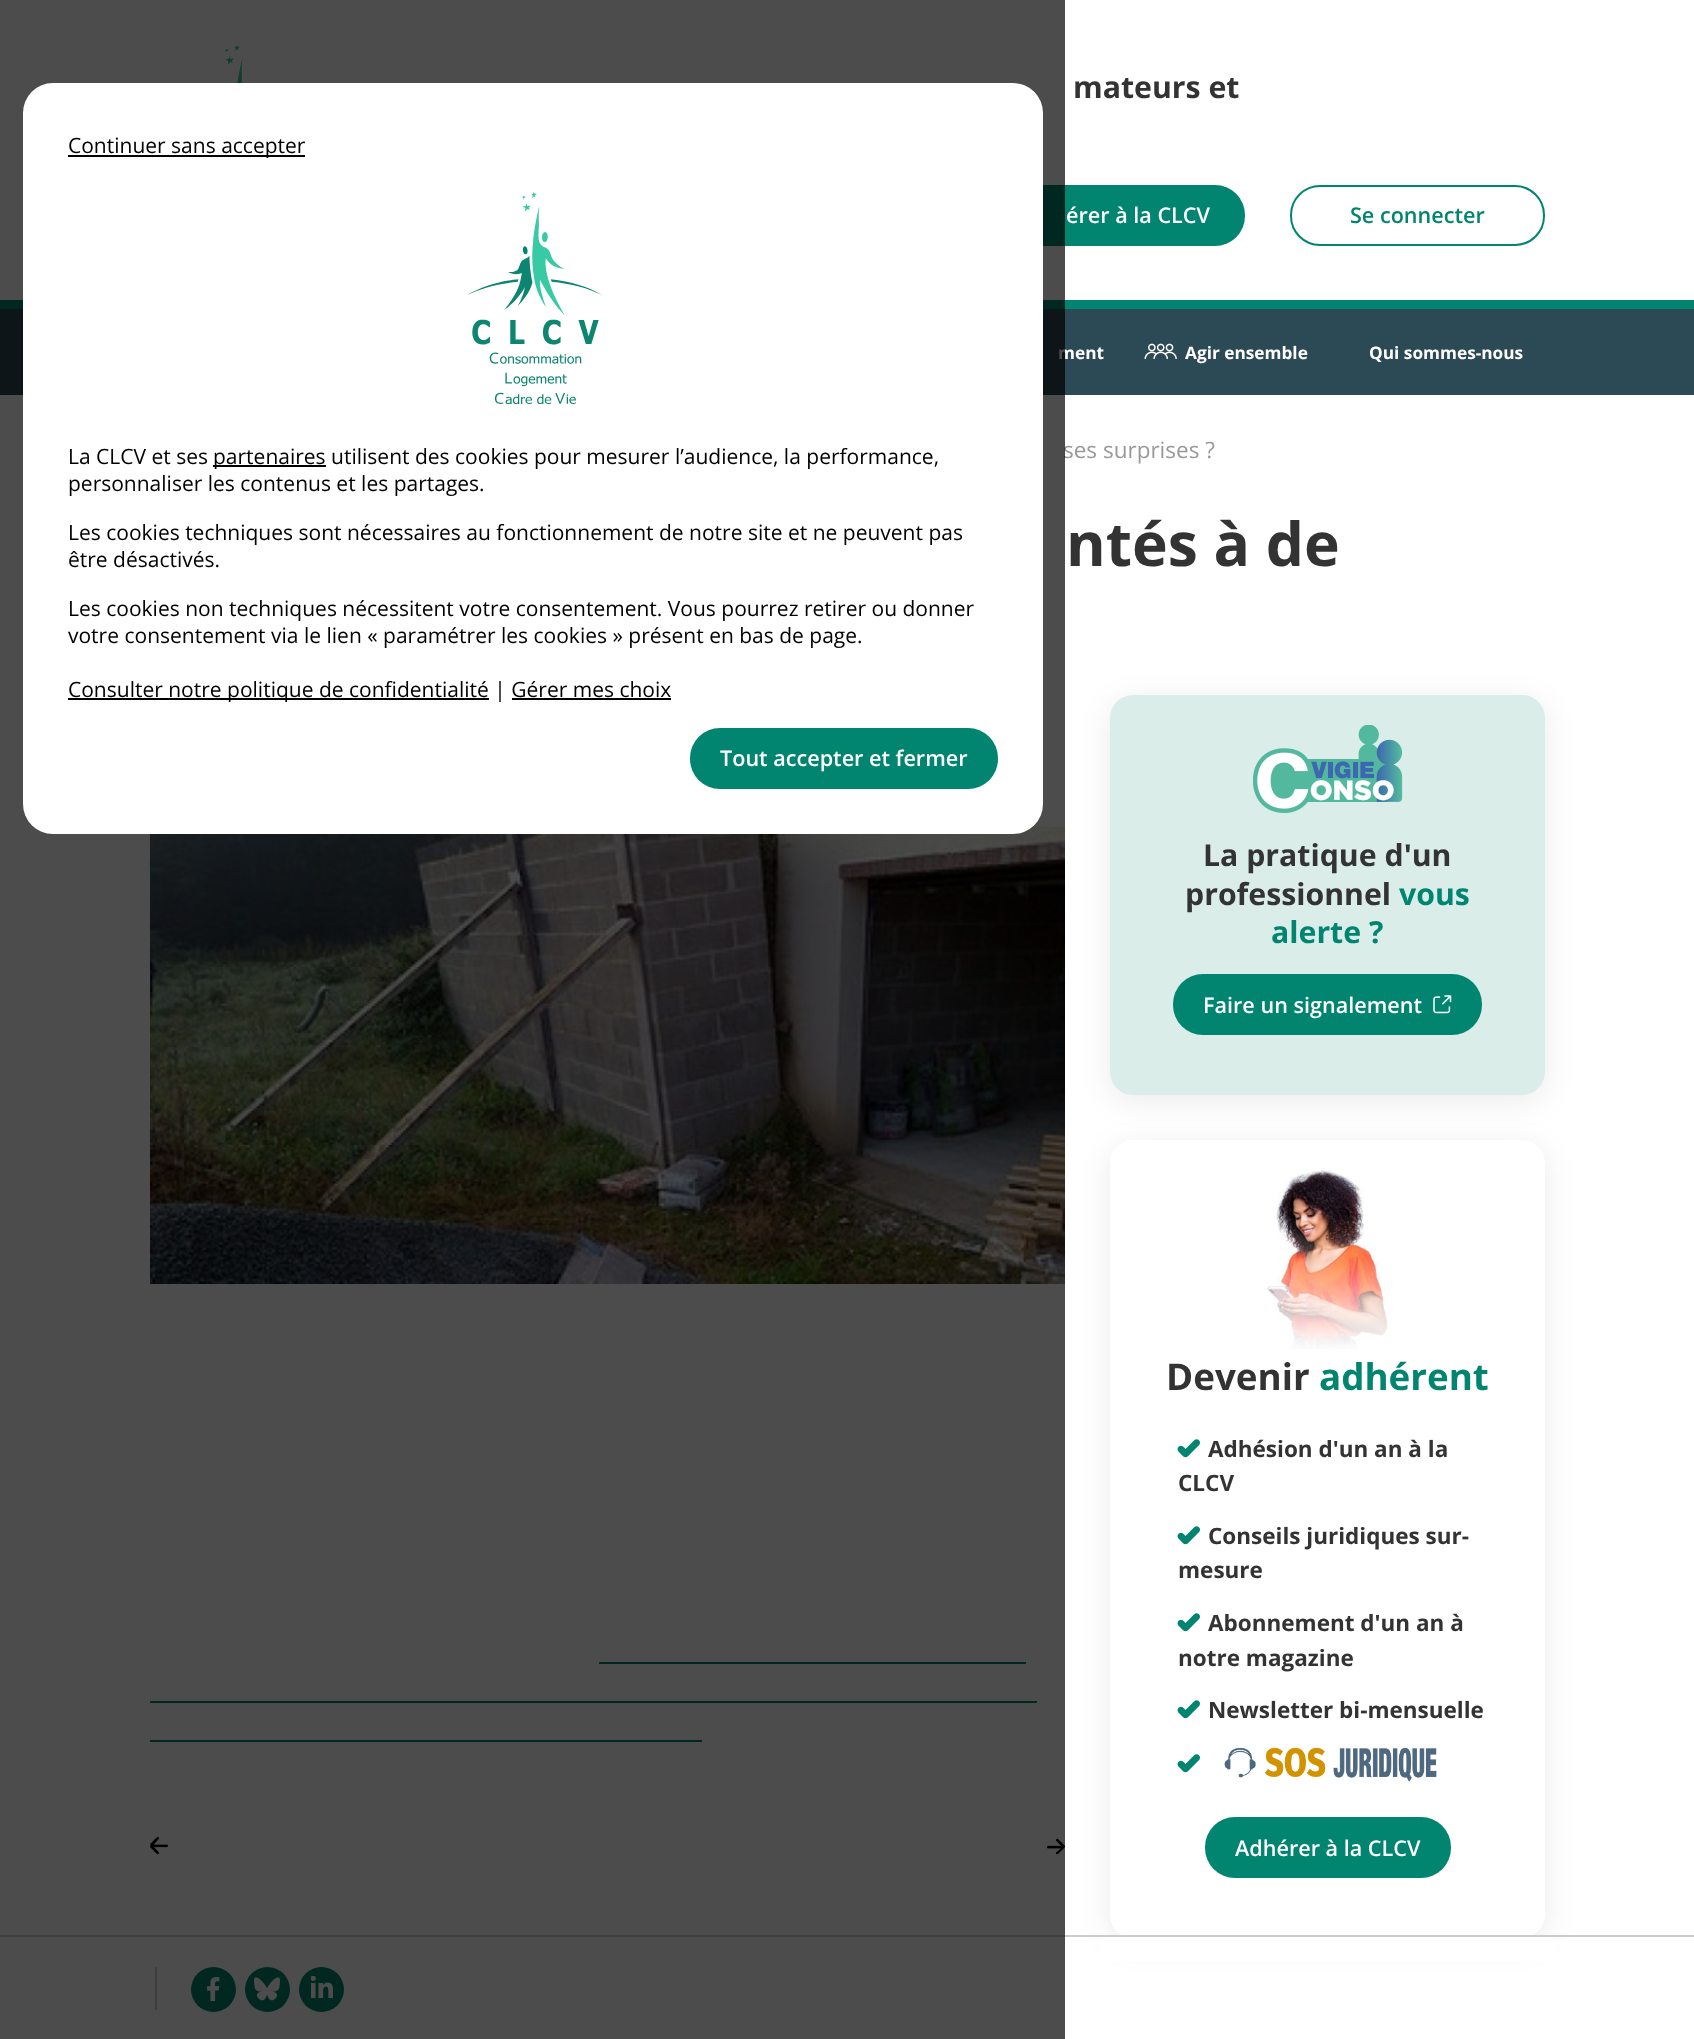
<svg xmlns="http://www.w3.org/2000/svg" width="1694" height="2039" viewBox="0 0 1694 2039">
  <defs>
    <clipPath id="clip1"><path d="M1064 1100H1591V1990H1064ZM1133 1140H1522C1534.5 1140 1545 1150.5 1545 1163V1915C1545 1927.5 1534.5 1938 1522 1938H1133C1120.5 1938 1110 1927.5 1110 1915V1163C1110 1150.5 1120.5 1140 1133 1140Z" clip-rule="evenodd"/></clipPath>
  </defs>
  <rect width="100%" height="100%" fill="rgb(255,255,255)"/>
  <image x="224" y="44" width="19" height="39" href="pic1.png"/>
  <text x="1073" y="98" font-family="Open Sans" font-size="30.25" font-weight="bold" fill="rgb(51,51,51)">mateurs et</text>
  <rect x="990" y="185" width="255" height="61" rx="30" fill="rgb(1,133,113)"/>
  <text x="1066" y="223" font-family="Open Sans" font-size="21.6" font-weight="600" fill="rgb(255,255,255)">érer à la CLCV</text>
  <rect x="1291" y="186" width="253" height="59" rx="29" fill="none" stroke="rgb(1,133,113)" stroke-width="2"/>
  <text x="1350" y="223" font-family="Open Sans" font-size="21.6" font-weight="600" fill="rgb(1,133,113)">Se connecter</text>
  <text x="1063" y="458" font-family="Open Sans" font-size="22.5" fill="rgb(153,153,153)">ses surprises ?</text>
  <image x="150" y="826" width="915" height="458" href="pic3.png"/>
  <rect x="599" y="1662" width="427" height="2" fill="rgb(1,133,113)"/>
  <rect x="150" y="1701" width="887" height="2" fill="rgb(1,133,113)"/>
  <rect x="150" y="1740" width="552" height="2" fill="rgb(1,133,113)"/>
  <image x="150" y="1837" width="18" height="18" href="pic4.png"/>
  <image x="1047" y="1838" width="18" height="17" href="pic5.png"/>
  <g clip-path="url(#clip1)">
    <rect x="1110" y="1146" width="435" height="798" rx="23" fill="rgba(0,0,0,0.08)" filter="blur(15px)"/>
  </g>
  <rect x="0" y="1935" width="1694" height="2" fill="rgb(204,204,204)"/>
  <rect x="155" y="1967" width="2" height="43" fill="rgb(204,204,204)"/>
  <circle cx="213.5" cy="1989.5" r="22.5" fill="rgb(1,133,113)"/>
  <image x="207" y="1977" width="13" height="24" href="pic6.png"/>
  <circle cx="267.5" cy="1989.5" r="22.5" fill="rgb(1,133,113)"/>
  <image x="254" y="1977" width="26" height="24" href="pic7.png"/>
  <circle cx="321.5" cy="1989.5" r="22.5" fill="rgb(1,133,113)"/>
  <image x="311" y="1976" width="22" height="22" href="pic8.png"/>
  <rect x="1110" y="701" width="435" height="400" rx="23" fill="rgba(0,0,0,0.08)" filter="blur(15px)"/>
  <rect x="0" y="309" width="1694" height="86" fill="rgb(44,73,86)"/>
  <rect x="0" y="300" width="1694" height="9" fill="rgb(1,133,113)"/>
  <text x="1058" y="359" font-family="Open Sans" font-size="17.25" font-weight="bold" fill="rgb(255,255,255)">ment</text>
  <rect x="0" y="0" width="1065" height="2039" fill="rgba(0,0,0,0.7)"/>
  <rect x="23" y="83" width="1020" height="751" rx="30" fill="rgb(255,255,255)"/>
  <rect x="68" y="155" width="237" height="2" fill="rgb(0,0,0)"/>
  <text x="68" y="153" font-family="Open Sans" font-size="21" fill="rgb(0,0,0)">Continuer sans accepter</text>
  <image x="467" y="191" width="135" height="213" href="pic2.png"/>
  <text x="68" y="464" font-family="Open Sans" font-size="21" fill="rgb(0,0,0)">La CLCV et ses</text>
  <rect x="213" y="465" width="113" height="2" fill="rgb(0,0,0)"/>
  <g font-family="Open Sans" font-size="21" fill="rgb(0,0,0)">
    <text x="213" y="464">partenaires utilisent des cookies pour mesurer l’audience, la performance,</text>
    <text x="68" y="491">personnaliser les contenus et les partages.</text>
    <text>
      <tspan x="68" y="540">Les cookies techniques sont nécessaires au fonctionnement de notre site et ne peuvent pas</tspan>
      <tspan x="68" y="567">être désactivés.</tspan>
    </text>
    <text>
      <tspan x="68" y="616">Les cookies non techniques nécessitent votre consentement. Vous pourrez retirer ou donner</tspan>
      <tspan x="68" y="643">votre consentement via le lien « paramétrer les cookies » présent en bas de page.</tspan>
    </text>
  </g>
  <rect x="68" y="698" width="421" height="2" fill="rgb(0,0,0)"/>
  <text x="68" y="697" font-family="Open Sans" font-size="21" fill="rgb(0,0,0)">Consulter notre politique de confidentialité | Gérer mes choix</text>
  <rect x="512" y="698" width="159" height="2" fill="rgb(0,0,0)"/>
  <rect x="690" y="728" width="308" height="61" rx="30" fill="rgb(1,133,113)"/>
  <text x="720" y="766" font-family="Open Sans" font-size="21.6" font-weight="600" fill="rgb(255,255,255)">Tout accepter et fermer</text>
  <text x="1066" y="566" font-family="Open Sans" font-size="60.5" font-weight="bold" fill="rgb(51,51,51)">ntés à de</text>
  <rect x="1100" y="1937" width="455" height="24" fill="rgb(255,255,255)"/>
  <rect x="1110" y="695" width="435" height="400" rx="23" fill="rgb(218,237,233)"/>
  <image x="1253" y="725" width="150" height="88" href="pic9.png"/>
  <g font-family="Open Sans" font-size="30.25" font-weight="bold" fill="rgb(51,51,51)">
    <text x="1203" y="866">La pratique d'un</text>
    <text x="1185" y="905">professionnel</text>
  </g>
  <g font-family="Open Sans" font-size="30.25" font-weight="bold" fill="rgb(1,133,113)">
    <text x="1399" y="905">vous</text>
    <text x="1271" y="943">alerte ?</text>
  </g>
  <rect x="1173" y="974" width="309" height="61" rx="30" fill="rgb(1,133,113)"/>
  <text x="1203" y="1013" font-family="Open Sans" font-size="21.6" font-weight="600" fill="rgb(255,255,255)">Faire un signalement</text>
  <image x="1433" y="995" width="19" height="19" href="pic10.png"/>
  <image x="1267" y="1170" width="121" height="179" href="pic11.png"/>
  <text x="1166" y="1390" font-family="Open Sans" font-size="36.75" font-weight="bold" fill="rgb(51,51,51)">Devenir</text>
  <text x="1319" y="1390" font-family="Open Sans" font-size="36.75" font-weight="bold" fill="rgb(1,133,113)">adhérent</text>
  <image x="1177" y="1439" width="23" height="19" href="pic12.png"/>
  <g font-family="Open Sans" font-size="22.5" font-weight="bold" fill="rgb(51,51,51)">
    <text x="1208" y="1457">Adhésion d'un an à la</text>
    <text x="1178" y="1491">CLCV</text>
  </g>
  <image x="1177" y="1526" width="23" height="19" href="pic12.png"/>
  <g font-family="Open Sans" font-size="22.5" font-weight="bold" fill="rgb(51,51,51)">
    <text x="1208" y="1544">Conseils juridiques sur-</text>
    <text x="1178" y="1578">mesure</text>
  </g>
  <image x="1177" y="1613" width="23" height="19" href="pic12.png"/>
  <g font-family="Open Sans" font-size="22.5" font-weight="bold" fill="rgb(51,51,51)">
    <text x="1208" y="1631">Abonnement d'un an à</text>
    <text x="1178" y="1666">notre magazine</text>
  </g>
  <image x="1177" y="1700" width="23" height="19" href="pic12.png"/>
  <text x="1208" y="1718" font-family="Open Sans" font-size="22.5" font-weight="bold" fill="rgb(51,51,51)">Newsletter bi-mensuelle</text>
  <image x="1177" y="1754" width="23" height="19" href="pic12.png"/>
  <image x="1224" y="1747" width="213" height="35" href="pic13.png"/>
  <rect x="1205" y="1817" width="246" height="61" rx="30" fill="rgb(1,133,113)"/>
  <text x="1235" y="1856" font-family="Open Sans" font-size="21.6" font-weight="600" fill="rgb(255,255,255)">Adhérer à la CLCV</text>
  <image x="1144" y="343" width="33" height="16" href="pic14.png"/>
  <g font-family="Open Sans" font-size="17.25" font-weight="bold" fill="rgb(255,255,255)">
    <text x="1185" y="359">Agir ensemble</text>
    <text x="1369" y="359">Qui sommes-nous</text>
  </g>
</svg>
